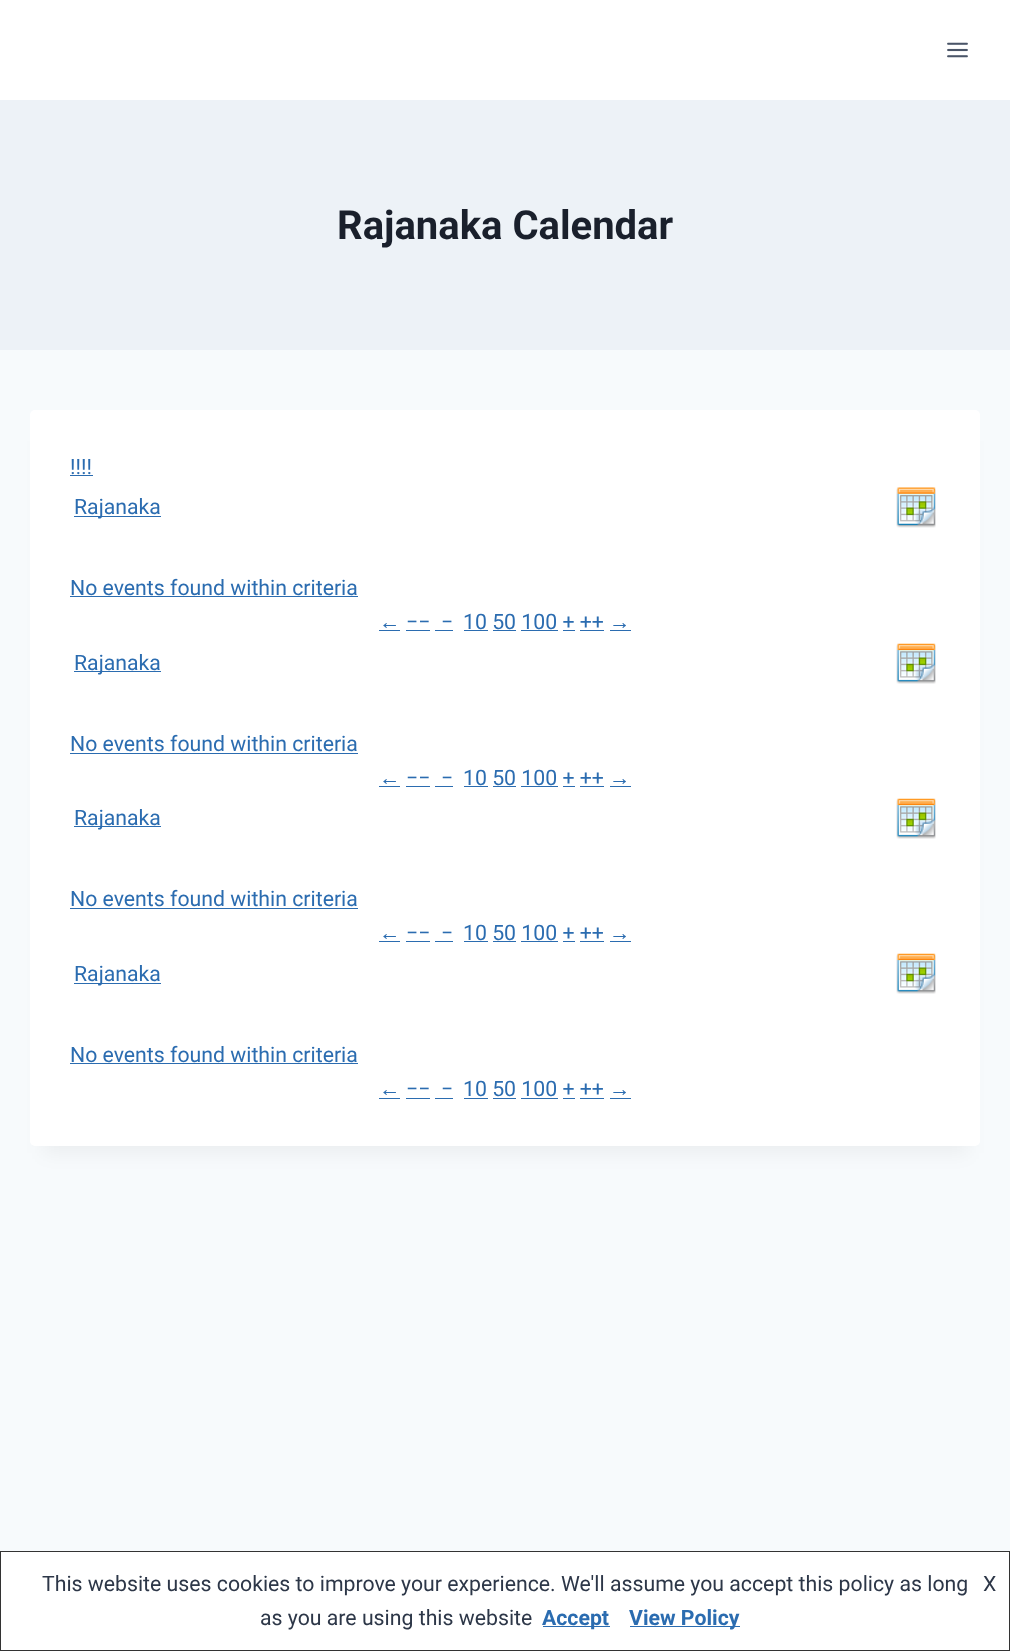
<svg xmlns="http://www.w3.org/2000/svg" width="1010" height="1651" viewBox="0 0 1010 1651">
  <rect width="100%" height="100%" fill="rgb(247,250,252)"/>
  <rect x="0" y="0" width="1010" height="100" fill="rgb(255,255,255)"/>
  <image x="947" y="42" width="21" height="16" href="pic1.png"/>
  <rect x="0" y="100" width="1010" height="250" fill="rgb(237,242,247)"/>
  <text x="337" y="239" font-family="Roboto" font-size="40" font-weight="bold" fill="rgb(26,32,44)">Rajanaka Calendar</text>
  <rect x="43" y="441" width="925" height="712" fill="rgba(0,0,0,0.05)" filter="blur(9.5px)"/>
  <rect x="30" y="410" width="950" height="736" rx="5" fill="rgb(255,255,255)"/>
  <text x="70" y="474" font-family="Roboto" font-size="21.25" fill="rgb(43,108,176)">!!!!</text>
  <rect x="70" y="475" width="23" height="1" fill="rgb(43,108,176)"/>
  <rect x="74" y="516" width="87" height="1" fill="rgb(43,108,176)"/>
  <text x="74" y="514" font-family="Roboto" font-size="21.25" fill="rgb(43,108,176)">Rajanaka</text>
  <image x="896" y="487" width="40" height="41" href="pic2.png"/>
  <text x="70" y="595" font-family="Roboto" font-size="21.25" fill="rgb(43,108,176)">No events found within criteria</text>
  <rect x="70" y="596" width="288" height="1" fill="rgb(43,108,176)"/>
  <text x="406" y="629" font-family="Roboto" font-size="21.25" fill="rgb(43,108,176)">−−</text>
  <rect x="406" y="630" width="24" height="1" fill="rgb(43,108,176)"/>
  <text x="441" y="629" font-family="Roboto" font-size="21.25" fill="rgb(43,108,176)">−</text>
  <rect x="435" y="630" width="18" height="1" fill="rgb(43,108,176)"/>
  <text x="463" y="629" font-family="Roboto" font-size="21.25" fill="rgb(43,108,176)">10 50 100 + ++</text>
  <rect x="464" y="630" width="24" height="1" fill="rgb(43,108,176)"/>
  <text x="379" y="629" font-family="Liberation Sans" font-size="21.25" fill="rgb(43,108,176)">←</text>
  <rect x="379" y="630" width="21" height="1" fill="rgb(43,108,176)"/>
  <text x="609" y="629" font-family="Liberation Sans" font-size="21.25" fill="rgb(43,108,176)">→</text>
  <rect x="610" y="630" width="21" height="1" fill="rgb(43,108,176)"/>
  <rect x="493" y="630" width="23" height="1" fill="rgb(43,108,176)"/>
  <rect x="521" y="630" width="37" height="1" fill="rgb(43,108,176)"/>
  <rect x="563" y="630" width="12" height="1" fill="rgb(43,108,176)"/>
  <rect x="580" y="630" width="24" height="1" fill="rgb(43,108,176)"/>
  <rect x="74" y="671" width="87" height="1" fill="rgb(43,108,176)"/>
  <text x="74" y="670" font-family="Roboto" font-size="21.25" fill="rgb(43,108,176)">Rajanaka</text>
  <image x="896" y="643" width="40" height="41" href="pic3.png"/>
  <text x="70" y="751" font-family="Roboto" font-size="21.25" fill="rgb(43,108,176)">No events found within criteria</text>
  <rect x="70" y="753" width="288" height="1" fill="rgb(43,108,176)"/>
  <text x="406" y="785" font-family="Roboto" font-size="21.25" fill="rgb(43,108,176)">−−</text>
  <rect x="406" y="786" width="24" height="1" fill="rgb(43,108,176)"/>
  <text x="441" y="785" font-family="Roboto" font-size="21.25" fill="rgb(43,108,176)">−</text>
  <rect x="435" y="786" width="18" height="1" fill="rgb(43,108,176)"/>
  <text x="463" y="785" font-family="Roboto" font-size="21.25" fill="rgb(43,108,176)">10 50 100 + ++</text>
  <rect x="464" y="786" width="24" height="1" fill="rgb(43,108,176)"/>
  <text x="379" y="785" font-family="Liberation Sans" font-size="21.25" fill="rgb(43,108,176)">←</text>
  <rect x="379" y="786" width="21" height="1" fill="rgb(43,108,176)"/>
  <text x="609" y="785" font-family="Liberation Sans" font-size="21.25" fill="rgb(43,108,176)">→</text>
  <rect x="610" y="786" width="21" height="1" fill="rgb(43,108,176)"/>
  <rect x="493" y="786" width="23" height="1" fill="rgb(43,108,176)"/>
  <rect x="521" y="786" width="37" height="1" fill="rgb(43,108,176)"/>
  <rect x="563" y="786" width="12" height="1" fill="rgb(43,108,176)"/>
  <rect x="580" y="786" width="24" height="1" fill="rgb(43,108,176)"/>
  <rect x="74" y="826" width="87" height="1" fill="rgb(43,108,176)"/>
  <text x="74" y="825" font-family="Roboto" font-size="21.25" fill="rgb(43,108,176)">Rajanaka</text>
  <image x="896" y="798" width="40" height="41" href="pic3.png"/>
  <text x="70" y="906" font-family="Roboto" font-size="21.25" fill="rgb(43,108,176)">No events found within criteria</text>
  <rect x="70" y="908" width="288" height="1" fill="rgb(43,108,176)"/>
  <text x="406" y="940" font-family="Roboto" font-size="21.25" fill="rgb(43,108,176)">−−</text>
  <rect x="406" y="941" width="24" height="1" fill="rgb(43,108,176)"/>
  <text x="441" y="940" font-family="Roboto" font-size="21.25" fill="rgb(43,108,176)">−</text>
  <rect x="435" y="941" width="18" height="1" fill="rgb(43,108,176)"/>
  <text x="463" y="940" font-family="Roboto" font-size="21.25" fill="rgb(43,108,176)">10 50 100 + ++</text>
  <rect x="464" y="941" width="24" height="1" fill="rgb(43,108,176)"/>
  <text x="379" y="940" font-family="Liberation Sans" font-size="21.25" fill="rgb(43,108,176)">←</text>
  <rect x="379" y="941" width="21" height="1" fill="rgb(43,108,176)"/>
  <text x="609" y="940" font-family="Liberation Sans" font-size="21.25" fill="rgb(43,108,176)">→</text>
  <rect x="610" y="941" width="21" height="1" fill="rgb(43,108,176)"/>
  <rect x="493" y="941" width="23" height="1" fill="rgb(43,108,176)"/>
  <rect x="521" y="941" width="37" height="1" fill="rgb(43,108,176)"/>
  <rect x="563" y="941" width="12" height="1" fill="rgb(43,108,176)"/>
  <rect x="580" y="941" width="24" height="1" fill="rgb(43,108,176)"/>
  <rect x="74" y="983" width="87" height="1" fill="rgb(43,108,176)"/>
  <text x="74" y="981" font-family="Roboto" font-size="21.25" fill="rgb(43,108,176)">Rajanaka</text>
  <image x="896" y="953" width="40" height="41" href="pic3.png"/>
  <text x="70" y="1062" font-family="Roboto" font-size="21.25" fill="rgb(43,108,176)">No events found within criteria</text>
  <rect x="70" y="1063" width="288" height="1" fill="rgb(43,108,176)"/>
  <text x="406" y="1096" font-family="Roboto" font-size="21.25" fill="rgb(43,108,176)">−−</text>
  <rect x="406" y="1098" width="24" height="1" fill="rgb(43,108,176)"/>
  <text x="441" y="1096" font-family="Roboto" font-size="21.25" fill="rgb(43,108,176)">−</text>
  <rect x="435" y="1098" width="18" height="1" fill="rgb(43,108,176)"/>
  <text x="463" y="1096" font-family="Roboto" font-size="21.25" fill="rgb(43,108,176)">10 50 100 + ++</text>
  <rect x="464" y="1098" width="24" height="1" fill="rgb(43,108,176)"/>
  <text x="379" y="1096" font-family="Liberation Sans" font-size="21.25" fill="rgb(43,108,176)">←</text>
  <rect x="379" y="1098" width="21" height="1" fill="rgb(43,108,176)"/>
  <text x="609" y="1096" font-family="Liberation Sans" font-size="21.25" fill="rgb(43,108,176)">→</text>
  <rect x="610" y="1098" width="21" height="1" fill="rgb(43,108,176)"/>
  <rect x="493" y="1098" width="23" height="1" fill="rgb(43,108,176)"/>
  <rect x="521" y="1098" width="37" height="1" fill="rgb(43,108,176)"/>
  <rect x="563" y="1098" width="12" height="1" fill="rgb(43,108,176)"/>
  <rect x="580" y="1098" width="24" height="1" fill="rgb(43,108,176)"/>
  <rect x="0.5" y="1551.5" width="1009" height="99" fill="rgb(255,255,255)" stroke="rgb(51,51,51)"/>
  <g font-family="Roboto" font-size="21.25" fill="rgb(45,55,72)">
    <text x="42" y="1591">This website uses cookies to improve your experience. We'll assume you accept this policy as long</text>
    <text x="983" y="1591">X</text>
    <text x="260" y="1625">as you are using this website</text>
  </g>
  <rect x="543" y="1626" width="67" height="1" fill="rgb(43,108,176)"/>
  <text x="542" y="1625" font-family="Roboto" font-size="21.25" font-weight="bold" fill="rgb(43,108,176)">Accept</text>
  <rect x="630" y="1626" width="110" height="1" fill="rgb(43,108,176)"/>
  <text x="629" y="1625" font-family="Roboto" font-size="21.25" font-weight="bold" fill="rgb(43,108,176)">View Policy</text>
</svg>
